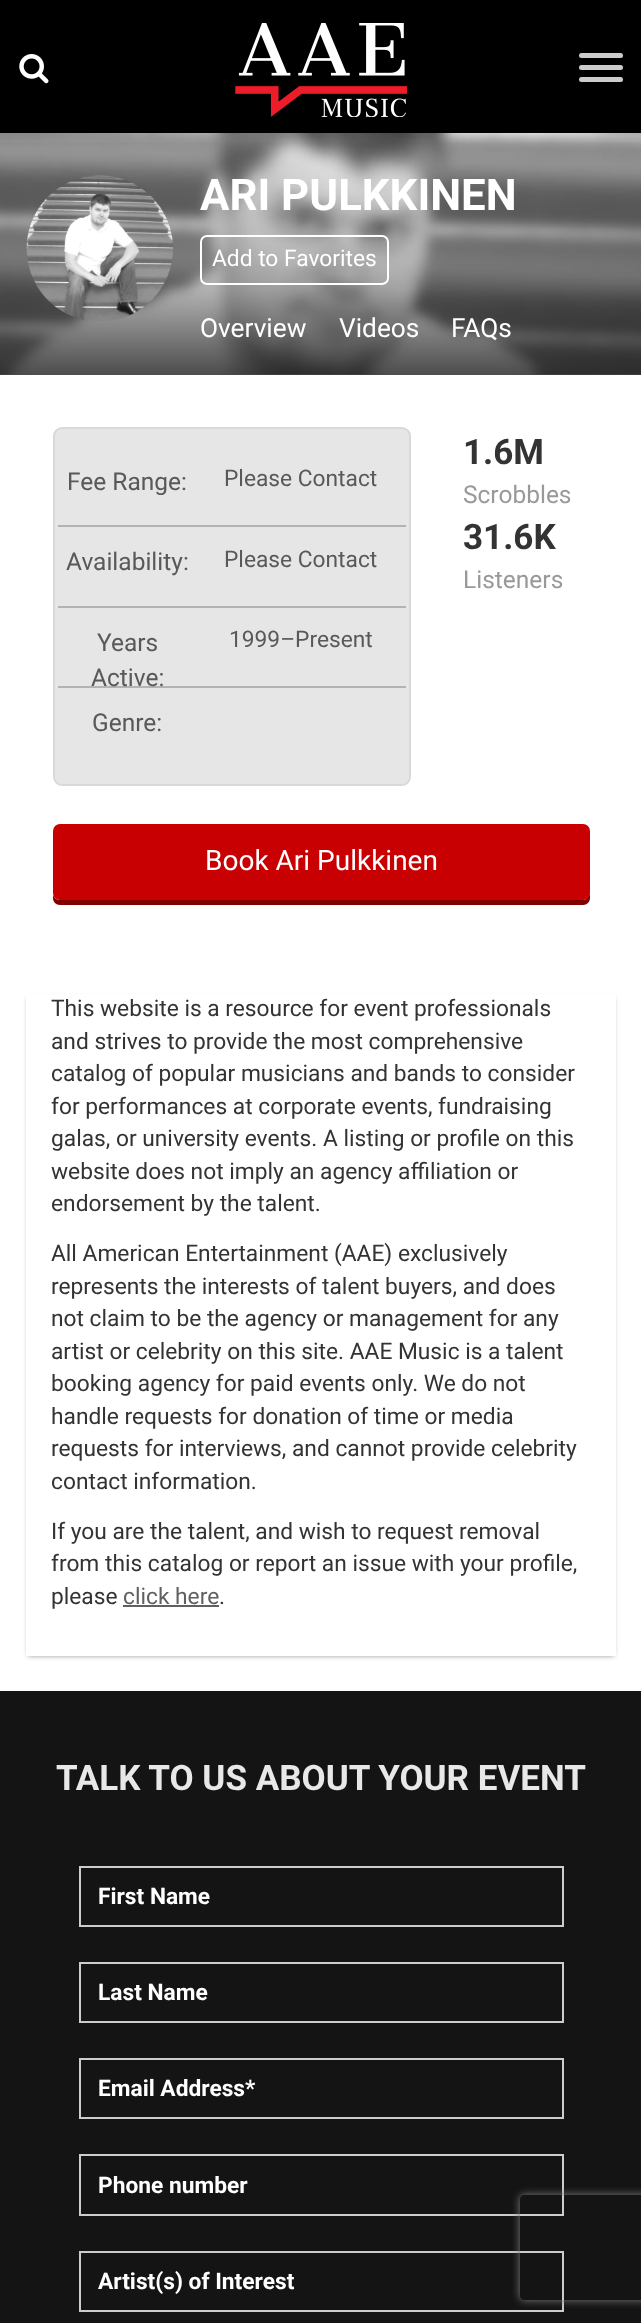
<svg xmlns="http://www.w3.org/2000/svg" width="641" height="2323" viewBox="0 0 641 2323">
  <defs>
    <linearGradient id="g1" gradientUnits="userSpaceOnUse" x1="321" y1="131" x2="321" y2="375"><stop offset="0" stop-color="rgb(0,0,0)" stop-opacity="0"/><stop offset="0.65" stop-color="rgb(0,0,0)" stop-opacity="0.3"/><stop offset="1" stop-color="rgb(0,0,0)" stop-opacity="0.7"/></linearGradient>
    <clipPath id="clip1"><path d="M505 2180H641V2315H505ZM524 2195H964C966 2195 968 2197 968 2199V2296C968 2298 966 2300 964 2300H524C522 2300 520 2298 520 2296V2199C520 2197 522 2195 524 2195Z" clip-rule="evenodd"/></clipPath>
  </defs>
  <rect width="100%" height="100%" fill="rgb(255,255,255)"/>
  <rect x="0" y="0" width="641" height="133" fill="rgb(0,0,0)"/>
  <image x="19" y="54" width="30" height="30" href="pic1.png"/>
  <image x="235" y="23" width="172" height="94" href="pic2.png"/>
  <rect x="579" y="53" width="44" height="5" rx="2.5" fill="rgb(204,204,204)"/>
  <rect x="579" y="65" width="44" height="5" rx="2.5" fill="rgb(204,204,204)"/>
  <rect x="579" y="77" width="44" height="5" rx="2.5" fill="rgb(204,204,204)"/>
  <image x="0" y="133" width="641" height="242" href="pic3.png"/>
  <rect x="0" y="142" width="641" height="233" fill="url(#g1)"/>
  <image x="26" y="175" width="148" height="146" href="pic4.png"/>
  <text x="200" y="210" font-family="Roboto" font-size="43.75" font-weight="bold" fill="rgb(255,255,255)">ARI PULKKINEN</text>
  <rect x="201" y="236" width="187" height="48" rx="6" fill="none" stroke="rgb(255,255,255)" stroke-width="2"/>
  <text x="212" y="266" font-family="Roboto" font-size="22.75" fill="rgb(255,255,255)">Add to Favorites</text>
  <g font-family="Roboto" font-size="26.25" fill="rgb(255,255,255)">
    <text x="200" y="337">Overview</text>
    <text x="339" y="337">Videos</text>
    <text x="451" y="337">FAQs</text>
  </g>
  <rect x="54" y="428" width="356" height="357" rx="8" fill="rgb(230,230,230)" stroke="rgb(217,217,217)" stroke-width="2"/>
  <rect x="58" y="525" width="348" height="2" fill="rgb(179,179,179)"/>
  <text x="67" y="490" font-family="Roboto" font-size="24.5" fill="rgb(89,89,89)">Fee Range:</text>
  <text x="224" y="486" font-family="Roboto" font-size="22.75" fill="rgb(89,89,89)">Please Contact</text>
  <rect x="58" y="606" width="348" height="2" fill="rgb(179,179,179)"/>
  <text x="66" y="570" font-family="Roboto" font-size="24.5" fill="rgb(89,89,89)">Availability:</text>
  <text x="224" y="567" font-family="Roboto" font-size="22.75" fill="rgb(89,89,89)">Please Contact</text>
  <rect x="58" y="686" width="348" height="2" fill="rgb(179,179,179)"/>
  <g font-family="Roboto" font-size="24.5" fill="rgb(89,89,89)">
    <text x="97" y="651">Years</text>
    <text x="91" y="686">Active:</text>
  </g>
  <text x="229" y="647" font-family="Roboto" font-size="22.75" fill="rgb(89,89,89)">1999–Present</text>
  <text x="92" y="731" font-family="Roboto" font-size="24.5" fill="rgb(89,89,89)">Genre:</text>
  <text x="463" y="464" font-family="Roboto" font-size="35" font-weight="bold" fill="rgb(51,51,51)">1.6M</text>
  <text x="463" y="503" font-family="Roboto" font-size="24.5" fill="rgb(153,153,153)">Scrobbles</text>
  <text x="463" y="549" font-family="Roboto" font-size="35" font-weight="bold" fill="rgb(51,51,51)">31.6K</text>
  <text x="463" y="588" font-family="Roboto" font-size="24.5" fill="rgb(153,153,153)">Listeners</text>
  <path d="M53 895V898C53 902 56 905 60 905H583C587 905 590 902 590 898V835V892C590 896 587 900 583 900H60C57 900 54 898 53 895Z" fill="rgb(128,0,0)"/>
  <rect x="53" y="824" width="537" height="76" rx="7" fill="rgb(201,0,1)"/>
  <text x="205" y="870" font-family="Roboto" font-size="28" fill="rgb(255,255,255)">Book Ari Pulkkinen</text>
  <rect x="28" y="998" width="586" height="658" fill="rgba(0,0,0,0.4)" filter="blur(2.5px)"/>
  <rect x="26" y="994" width="590" height="662" fill="rgb(255,255,255)"/>
  <g font-family="Roboto" font-size="22.75" fill="rgb(51,51,51)">
    <text>
      <tspan x="51" y="1016">This website is a resource for event professionals</tspan>
      <tspan x="51" y="1049">and strives to provide the most comprehensive</tspan>
      <tspan x="51" y="1081">catalog of popular musicians and bands to consider</tspan>
      <tspan x="51" y="1114">for performances at corporate events, fundraising</tspan>
      <tspan x="51" y="1146">galas, or university events. A listing or profile on this</tspan>
      <tspan x="51" y="1179">website does not imply an agency affiliation or</tspan>
      <tspan x="51" y="1211">endorsement by the talent.</tspan>
    </text>
    <text>
      <tspan x="51" y="1261">All American Entertainment (AAE) exclusively</tspan>
      <tspan x="51" y="1294">represents the interests of talent buyers, and does</tspan>
      <tspan x="51" y="1326">not claim to be the agency or management for any</tspan>
      <tspan x="51" y="1359">artist or celebrity on this site. AAE Music is a talent</tspan>
      <tspan x="51" y="1391">booking agency for paid events only. We do not</tspan>
      <tspan x="51" y="1424">handle requests for donation of time or media</tspan>
      <tspan x="51" y="1456">requests for interviews, and cannot provide celebrity</tspan>
      <tspan x="51" y="1489">contact information.</tspan>
    </text>
    <text>
      <tspan x="51" y="1539">If you are the talent, and wish to request removal</tspan>
      <tspan x="51" y="1571">from this catalog or report an issue with your profile,</tspan>
      <tspan x="51" y="1604">please</tspan>
    </text>
  </g>
  <text x="123" y="1604" font-family="Roboto" font-size="22.75" fill="rgb(96,96,96)">click here</text>
  <rect x="123" y="1605" width="96" height="2" fill="rgb(96,96,96)"/>
  <text x="219" y="1604" font-family="Roboto" font-size="22.75" fill="rgb(51,51,51)">.</text>
  <rect x="0" y="1691" width="641" height="632" fill="rgb(20,20,20)"/>
  <text x="56" y="1790" font-family="Roboto" font-size="35" font-weight="bold" fill="rgb(232,232,232)">TALK TO US ABOUT YOUR EVENT</text>
  <rect x="80" y="1867" width="483" height="59" fill="none" stroke="rgb(204,204,204)" stroke-width="2"/>
  <text x="98" y="1904" font-family="Roboto" font-size="22.75" font-weight="bold" fill="rgb(255,255,255)">First Name</text>
  <rect x="80" y="1963" width="483" height="59" fill="none" stroke="rgb(204,204,204)" stroke-width="2"/>
  <text x="98" y="2000" font-family="Roboto" font-size="22.75" font-weight="bold" fill="rgb(255,255,255)">Last Name</text>
  <rect x="80" y="2059" width="483" height="59" fill="none" stroke="rgb(204,204,204)" stroke-width="2"/>
  <text x="98" y="2096" font-family="Roboto" font-size="22.75" font-weight="bold" fill="rgb(255,255,255)">Email Address*</text>
  <rect x="80" y="2155" width="483" height="60" fill="none" stroke="rgb(204,204,204)" stroke-width="2"/>
  <text x="98" y="2193" font-family="Roboto" font-size="22.75" font-weight="bold" fill="rgb(255,255,255)">Phone number</text>
  <rect x="80" y="2252" width="483" height="59" fill="none" stroke="rgb(204,204,204)" stroke-width="2"/>
  <text x="98" y="2289" font-family="Roboto" font-size="22.75" font-weight="bold" fill="rgb(255,255,255)">Artist(s) of Interest</text>
  <g clip-path="url(#clip1)">
    <rect x="520" y="2195" width="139" height="105" rx="4" fill="rgb(128,128,128)" filter="blur(4.5px)"/>
  </g>
</svg>
